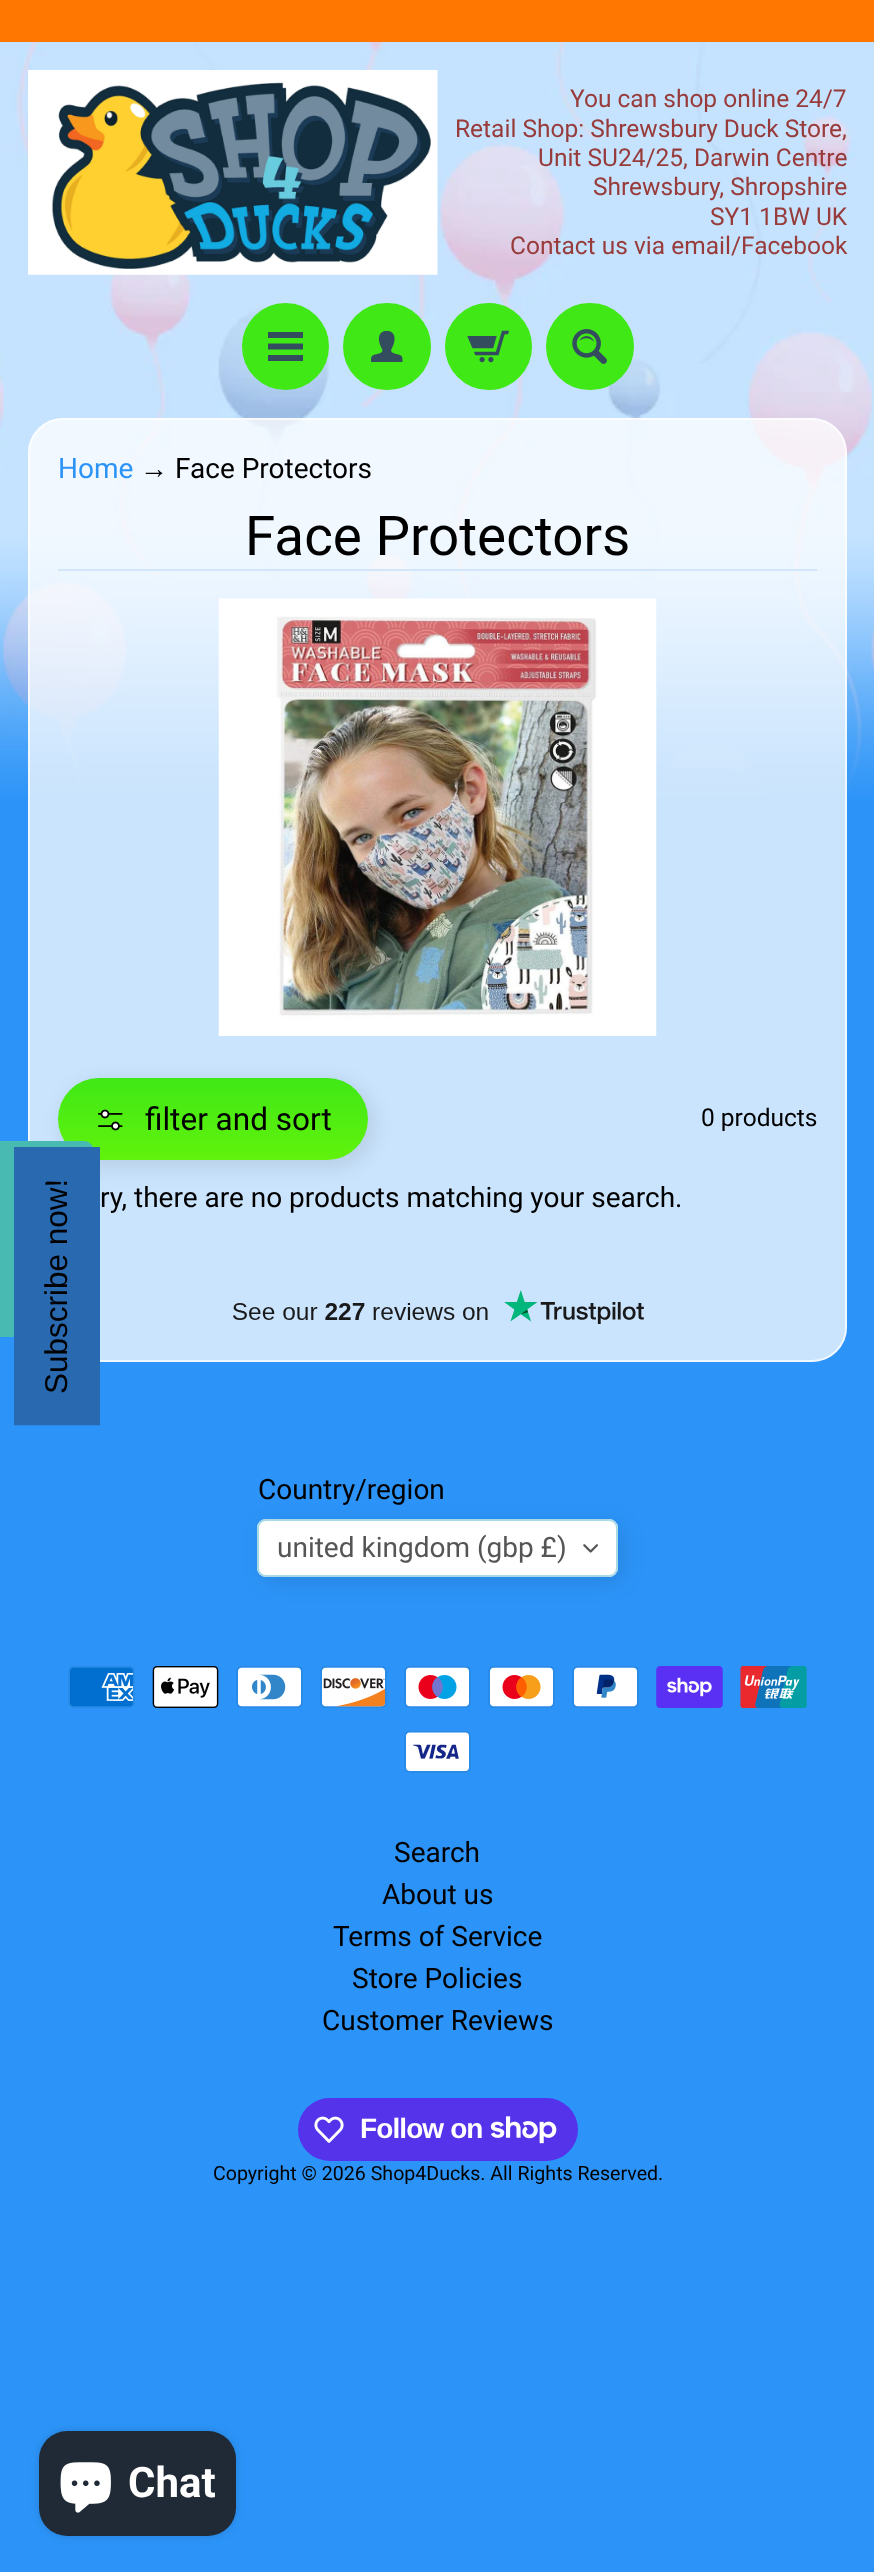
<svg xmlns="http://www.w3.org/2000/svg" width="874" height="2572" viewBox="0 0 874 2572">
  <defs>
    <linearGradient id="g1" gradientUnits="userSpaceOnUse" x1="213" y1="1078" x2="213" y2="1160"><stop offset="0" stop-color="rgb(64,232,22)"/><stop offset="1" stop-color="rgb(97,242,12)"/></linearGradient>
    <clipPath id="clip1"><path d="M38.5 1375.5V1197C38.5 1187 46.5 1178.5 57 1178.5C67 1178.5 75 1187 75 1197V1375.5C75 1385.5 67 1394 57 1394C46.5 1394 38.5 1385.5 38.5 1375.5Z"/></clipPath>
  </defs>
  <rect width="100%" height="100%" fill="rgb(44,148,248)"/>
  <image x="0" y="42" width="874" height="758" href="pic1.png"/>
  <rect x="0" y="0" width="874" height="42" fill="rgb(255,119,0)"/>
  <image x="28" y="70" width="410" height="205" href="pic2.png"/>
  <g font-family="Roboto" font-size="24.5" fill="rgb(152,59,59)">
    <text x="570" y="107">You can shop online 24/7</text>
    <text x="455" y="137">Retail Shop: Shrewsbury Duck Store,</text>
    <text x="538" y="166">Unit SU24/25, Darwin Centre</text>
    <text x="593" y="195">Shrewsbury, Shropshire</text>
    <text x="710" y="225">SY1 1BW UK</text>
    <text x="510" y="254">Contact us via email/Facebook</text>
  </g>
  <circle cx="285.5" cy="346.5" r="41" fill="rgb(64,232,22)" stroke="rgb(64,232,22)" stroke-width="5"/>
  <path d="M303 338H268V332H303ZM303 343.5H268V349.5H303ZM303 355H268V361H303Z" fill="rgb(51,77,95)"/>
  <rect x="345.5" y="305.5" width="83" height="82" rx="41" fill="rgb(64,232,22)" stroke="rgb(64,232,22)" stroke-width="5"/>
  <image x="371" y="331" width="32" height="31" href="pic3.png"/>
  <circle cx="488.5" cy="346.5" r="41" fill="rgb(64,232,22)" stroke="rgb(64,232,22)" stroke-width="5"/>
  <image x="467" y="330" width="42" height="33" href="pic4.png"/>
  <rect x="548.5" y="305.5" width="83" height="82" rx="41" fill="rgb(64,232,22)" stroke="rgb(64,232,22)" stroke-width="5"/>
  <image x="572" y="329" width="35" height="35" href="pic5.png"/>
  <rect x="28" y="418" width="819" height="944" rx="35" fill="rgba(255,255,255,0.75)"/>
  <rect x="29" y="419" width="817" height="942" rx="34" fill="none" stroke="rgba(255,255,255,0.7)" stroke-width="2"/>
  <text x="58" y="478" font-family="Roboto" font-size="28" fill="rgb(44,148,248)">Home</text>
  <text x="140" y="478" font-family="Liberation Sans" font-size="28" fill="rgb(0,0,0)">→</text>
  <text x="175" y="478" font-family="Roboto" font-size="28" fill="rgb(0,0,0)">Face Protectors</text>
  <rect x="58" y="569" width="759" height="2" fill="rgb(209,230,249)"/>
  <text x="245" y="555" font-family="Roboto" font-size="54.75" fill="rgb(0,0,0)">Face Protectors</text>
  <image x="218" y="598" width="439" height="438" href="pic6.png"/>
  <rect x="63" y="1083" width="310" height="83" rx="41.5" fill="rgba(0,0,0,0.1)" filter="blur(10.5px)"/>
  <rect x="58" y="1078" width="310" height="82" rx="41" fill="url(#g1)"/>
  <image x="98" y="1109" width="25" height="22" href="pic7.png"/>
  <text x="145" y="1130" font-family="Roboto" font-size="31.5" fill="rgb(0,0,0)">filter and sort</text>
  <text x="701" y="1126" font-family="Roboto" font-size="24.5" fill="rgb(0,0,0)">0 products</text>
  <text x="100" y="1207" font-family="Roboto" font-size="28" fill="rgb(0,0,0)">ry, there are no products matching your search.</text>
  <image x="233" y="1290" width="411" height="34" href="pic8.png"/>
  <path d="M0 1337V1141H84C90 1141 94 1146 94 1152V1326C94 1332 90 1337 84 1337Z" fill="rgb(72,186,177)"/>
  <rect x="14" y="1147" width="86" height="278" fill="rgb(41,105,176)"/>
  <path d="M16 1423.5V1149H98V1423.5Z" fill="none" stroke="rgb(41,105,176)" stroke-width="3.5"/>
  <g clip-path="url(#clip1)">
    <text x="67" y="1394" transform="rotate(-90 67 1394)" font-family="Liberation Sans" font-size="31.5" fill="rgb(0,0,0)">Subscribe now!</text>
  </g>
  <text x="258" y="1499" font-family="Roboto" font-size="28" fill="rgb(0,0,0)">Country/region</text>
  <rect x="263" y="1524" width="360" height="58" rx="9" fill="rgba(0,0,0,0.1)" filter="blur(10.5px)"/>
  <rect x="257" y="1519" width="361" height="58" rx="9" fill="rgb(255,255,255)"/>
  <image x="583" y="1544" width="15" height="9" href="pic9.png"/>
  <rect x="258" y="1520" width="359" height="56" rx="8" fill="none" stroke="rgb(170,217,230)" stroke-width="2"/>
  <text x="277" y="1557" font-family="Roboto" font-size="28" fill="rgb(85,85,85)">united kingdom (gbp £)</text>
  <image x="68" y="1666" width="67" height="42" href="pic10.png"/>
  <image x="152" y="1666" width="67" height="42" href="pic11.png"/>
  <image x="236" y="1666" width="67" height="42" href="pic12.png"/>
  <image x="320" y="1666" width="67" height="42" href="pic13.png"/>
  <image x="404" y="1666" width="67" height="42" href="pic14.png"/>
  <image x="488" y="1666" width="67" height="42" href="pic15.png"/>
  <image x="572" y="1666" width="67" height="42" href="pic16.png"/>
  <image x="656" y="1666" width="67" height="42" href="pic17.png"/>
  <image x="740" y="1666" width="67" height="42" href="pic18.png"/>
  <image x="404" y="1731" width="67" height="42" href="pic19.png"/>
  <g font-family="Roboto" font-size="28" fill="rgb(0,0,0)">
    <text x="394" y="1862">Search</text>
    <text x="382" y="1904">About us</text>
    <text x="333" y="1946">Terms of Service</text>
    <text x="352" y="1988">Store Policies</text>
    <text x="322" y="2030">Customer Reviews</text>
  </g>
  <rect x="298" y="2098" width="280" height="63" rx="31.5" fill="rgb(84,51,235)"/>
  <image x="314" y="2116" width="30" height="27" href="pic20.png"/>
  <text x="360" y="2138" font-family="Liberation Sans" font-size="28" font-weight="bold" letter-spacing="-0.9" fill="rgb(255,255,255)">Follow on</text>
  <image x="490" y="2116" width="67" height="28" href="pic21.png"/>
  <text x="213" y="2180" font-family="Roboto" font-size="19.6" fill="rgb(0,0,0)">Copyright © 2026 Shop4Ducks. All Rights Reserved.</text>
  <rect x="39" y="2431" width="197" height="105" rx="28" fill="rgba(0,0,0,0.15)" filter="blur(4.5px)"/>
  <rect x="39" y="2431" width="197" height="105" rx="28" fill="rgb(32,42,54)"/>
  <image x="60" y="2462" width="51" height="51" href="pic22.png"/>
  <text x="128" y="2497" font-family="Roboto" font-size="42" font-weight="bold" fill="rgb(255,255,255)">Chat</text>
</svg>
